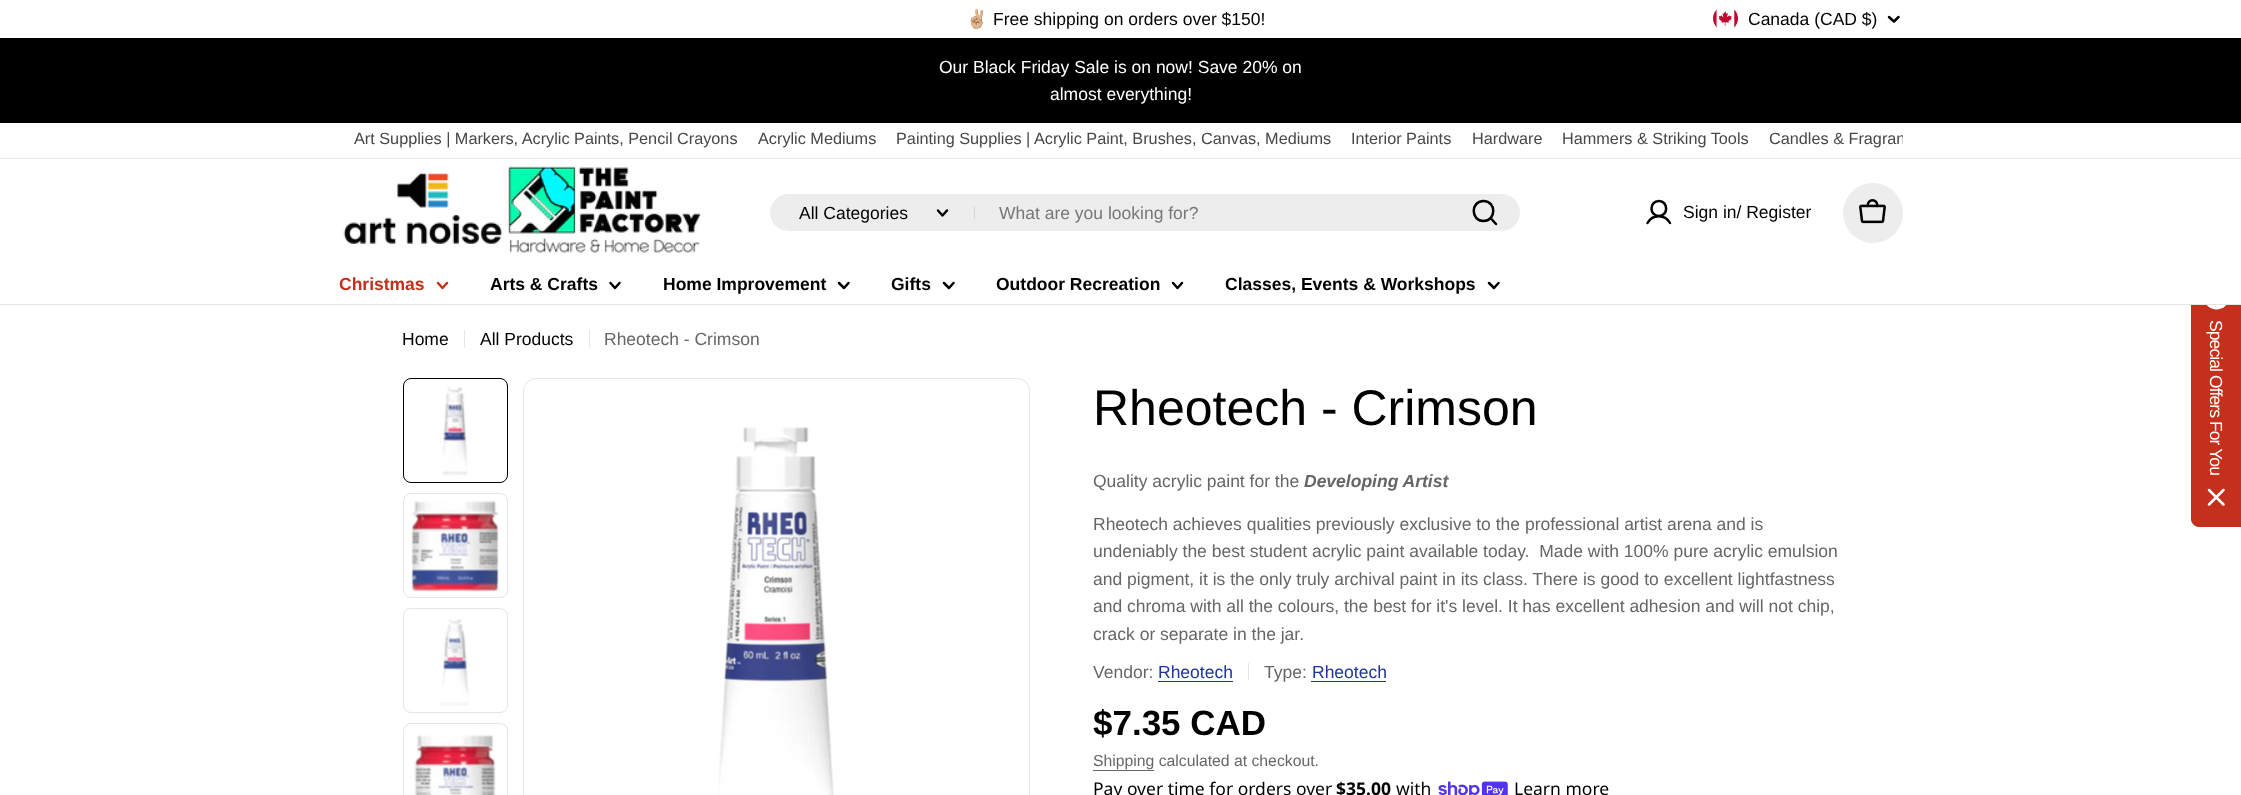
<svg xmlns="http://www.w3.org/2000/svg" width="2241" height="795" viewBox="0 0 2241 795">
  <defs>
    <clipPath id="clip1"><rect x="340" y="123" width="1563" height="35"/></clipPath>
  </defs>
  <rect width="100%" height="100%" fill="rgb(255,255,255)"/>
  <text x="966" y="25" font-family="Noto Color Emoji" font-size="17.5" fill="rgb(0,0,0)">✌🏼</text>
  <text x="993" y="25" font-family="Liberation Sans" font-size="17.5" fill="rgb(0,0,0)">Free shipping on orders over $150!</text>
  <image x="1713" y="9" width="25" height="19" href="pic1.png"/>
  <text x="1748" y="25" font-family="Liberation Sans" font-size="17.5" fill="rgb(0,0,0)">Canada (CAD $)</text>
  <path d="M1898.5 17L1894 21.5L1889 17" fill="none" stroke="rgb(0,0,0)" stroke-width="2.5" stroke-linecap="round" stroke-linejoin="round"/>
  <rect x="0" y="38" width="2241" height="85" fill="rgb(0,0,0)"/>
  <g font-family="Liberation Sans" font-size="17.5" fill="rgb(255,255,255)">
    <text x="939" y="73">Our Black Friday Sale is on now! Save 20% on</text>
    <text x="1050" y="100">almost everything!</text>
  </g>
  <rect x="0" y="158" width="2241" height="1" fill="rgb(235,235,235)"/>
  <g font-family="Liberation Sans" font-size="16.25" fill="rgb(71,71,71)">
    <text x="354" y="144">Art Supplies | Markers, Acrylic Paints, Pencil Crayons</text>
    <text x="758" y="144">Acrylic Mediums</text>
    <text x="896" y="144">Painting Supplies | Acrylic Paint, Brushes, Canvas, Mediums</text>
    <text x="1351" y="144">Interior Paints</text>
    <text x="1472" y="144">Hardware</text>
    <text x="1562" y="144">Hammers &amp; Striking Tools</text>
  </g>
  <g clip-path="url(#clip1)">
    <text x="1769" y="144" font-family="Liberation Sans" font-size="16.25" fill="rgb(71,71,71)">Candles &amp; Fragran</text>
  </g>
  <image x="343" y="166" width="358" height="87" href="pic2.png"/>
  <rect x="770" y="194" width="750" height="37" rx="18.5" fill="rgb(237,237,237)"/>
  <text x="799" y="219" font-family="Liberation Sans" font-size="17.5" fill="rgb(0,0,0)">All Categories</text>
  <path d="M947 210.5L942.5 215.5L938 210.5" fill="none" stroke="rgb(0,0,0)" stroke-width="2.5" stroke-linecap="round" stroke-linejoin="round"/>
  <rect x="974" y="206" width="1" height="13" fill="rgb(213,213,213)"/>
  <text x="999" y="219" font-family="Liberation Sans" font-size="17.5" fill="rgb(119,119,119)">What are you looking for?</text>
  <path d="M1483.5 221C1496.5 221 1496.5 201 1483.5 201C1470.5 201 1470.5 221 1483.5 221ZM1490.5 218L1496 224" fill="none" stroke="rgb(0,0,0)" stroke-width="2.5" stroke-linecap="round" stroke-linejoin="round"/>
  <path d="M1659 216C1668.5 216 1668.5 201 1659 201C1649 201 1649 216 1659 216ZM1647.5 223C1652.5 214 1665 214 1670 223" fill="none" stroke="rgb(0,0,0)" stroke-width="2.5" stroke-linecap="round" stroke-linejoin="round"/>
  <text x="1683" y="218" font-family="Liberation Sans" font-size="17.5" fill="rgb(0,0,0)">Sign in/ Register</text>
  <circle cx="1873" cy="213" r="30" fill="rgb(237,237,237)"/>
  <image x="1859" y="199" width="27" height="25" href="pic3.png"/>
  <path d="M2191 519V276C2191 272 2195 268 2199 268H2241V527H2199C2195 527 2191 523 2191 519Z" fill="rgb(196,48,28)"/>
  <path d="M2192 519V276C2192 272 2195 269 2199 269H2240.5V526H2199C2195 526 2192 523 2192 519Z" fill="none" stroke="rgb(196,48,28)" stroke-width="1.2"/>
  <path d="M2229 297C2229 313.5 2204 313.5 2204 297C2204 281 2229 281 2229 297Z" fill="rgb(255,255,255)"/>
  <rect x="2191" y="268" width="50" height="36" fill="rgb(255,255,255)"/>
  <rect x="0" y="304" width="2241" height="1" fill="rgb(229,229,229)"/>
  <text x="339" y="290" font-family="Liberation Sans" font-size="17.5" font-weight="bold" fill="rgb(196,48,28)">Christmas</text>
  <path d="M447 283L442.5 288L438 283" fill="none" stroke="rgb(196,48,28)" stroke-width="2.5" stroke-linecap="round" stroke-linejoin="round"/>
  <text x="490" y="290" font-family="Liberation Sans" font-size="17.5" font-weight="bold" fill="rgb(0,0,0)">Arts &amp; Crafts</text>
  <path d="M619.5 283L615 288L610.5 283" fill="none" stroke="rgb(0,0,0)" stroke-width="2.5" stroke-linecap="round" stroke-linejoin="round"/>
  <text x="663" y="290" font-family="Liberation Sans" font-size="17.5" font-weight="bold" fill="rgb(0,0,0)">Home Improvement</text>
  <path d="M848.5 283L844 288L839 283" fill="none" stroke="rgb(0,0,0)" stroke-width="2.5" stroke-linecap="round" stroke-linejoin="round"/>
  <text x="891" y="290" font-family="Liberation Sans" font-size="17.5" font-weight="bold" fill="rgb(0,0,0)">Gifts</text>
  <path d="M953.5 283L949 288L944 283" fill="none" stroke="rgb(0,0,0)" stroke-width="2.5" stroke-linecap="round" stroke-linejoin="round"/>
  <text x="996" y="290" font-family="Liberation Sans" font-size="17.5" font-weight="bold" fill="rgb(0,0,0)">Outdoor Recreation</text>
  <path d="M1182 283L1177.5 288L1173 283" fill="none" stroke="rgb(0,0,0)" stroke-width="2.5" stroke-linecap="round" stroke-linejoin="round"/>
  <text x="1225" y="290" font-family="Liberation Sans" font-size="17.5" font-weight="bold" fill="rgb(0,0,0)">Classes, Events &amp; Workshops</text>
  <path d="M1498.5 283L1494 288L1489 283" fill="none" stroke="rgb(0,0,0)" stroke-width="2.5" stroke-linecap="round" stroke-linejoin="round"/>
  <text x="402" y="345" font-family="Liberation Sans" font-size="17.5" fill="rgb(0,0,0)">Home</text>
  <rect x="464" y="330" width="1" height="18" fill="rgb(230,230,230)"/>
  <text x="480" y="345" font-family="Liberation Sans" font-size="17.5" fill="rgb(0,0,0)">All Products</text>
  <rect x="589" y="330" width="1" height="18" fill="rgb(230,230,230)"/>
  <text x="604" y="345" font-family="Liberation Sans" font-size="17.5" fill="rgb(102,102,102)">Rheotech - Crimson</text>
  <image x="442" y="387" width="26" height="89" href="pic4.png"/>
  <rect x="403.5" y="378.5" width="104" height="104" rx="7.5" fill="none" stroke="rgb(0,0,0)"/>
  <image x="411" y="500" width="88" height="92" href="pic5.png"/>
  <rect x="403.5" y="493.5" width="104" height="104" rx="7.5" fill="none" stroke="rgb(229,229,229)"/>
  <image x="441" y="619" width="28" height="87" href="pic6.png"/>
  <rect x="403.5" y="608.5" width="104" height="104" rx="7.5" fill="none" stroke="rgb(229,229,229)"/>
  <image x="414" y="734" width="82" height="61" href="pic7.png"/>
  <rect x="403.5" y="723.5" width="104" height="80" rx="7.5" fill="none" stroke="rgb(229,229,229)"/>
  <image x="718" y="427" width="116" height="368" href="pic8.png"/>
  <rect x="523.5" y="378.5" width="506" height="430" rx="12.5" fill="none" stroke="rgb(229,229,229)"/>
  <text x="1093" y="425" font-family="Liberation Sans" font-size="50" fill="rgb(0,0,0)">Rheotech - Crimson</text>
  <text x="1093" y="487" font-family="Liberation Sans" font-size="17.5" fill="rgb(102,102,102)">Quality acrylic paint for the</text>
  <text x="1304" y="487" font-family="Liberation Sans" font-size="17.5" font-weight="bold" font-style="italic" fill="rgb(102,102,102)">Developing Artist</text>
  <g font-family="Liberation Sans" font-size="17.5" fill="rgb(102,102,102)">
    <text xml:space="preserve"><tspan x="1093" y="530">Rheotech achieves qualities previously exclusive to the professional artist arena and is</tspan><tspan x="1093" y="557">undeniably the best student acrylic paint available today.  Made with 100% pure acrylic emulsion</tspan><tspan x="1093" y="585">and pigment, it is the only truly archival paint in its class. There is good to excellent lightfastness</tspan><tspan x="1093" y="612">and chroma with all the colours, the best for it's level. It has excellent adhesion and will not chip,</tspan><tspan x="1093" y="640">crack or separate in the jar.</tspan></text>
    <text x="1093" y="678">Vendor:</text>
  </g>
  <text x="1158" y="678" font-family="Liberation Sans" font-size="17.5" fill="rgb(29,52,154)">Rheotech</text>
  <rect x="1158" y="681" width="75" height="1" fill="rgb(29,52,154)"/>
  <rect x="1248" y="663" width="1" height="17" fill="rgb(229,229,229)"/>
  <text x="1264" y="678" font-family="Liberation Sans" font-size="17.5" fill="rgb(102,102,102)">Type:</text>
  <text x="1312" y="678" font-family="Liberation Sans" font-size="17.5" fill="rgb(29,52,154)">Rheotech</text>
  <rect x="1311" y="681" width="75" height="1" fill="rgb(29,52,154)"/>
  <text x="1093" y="735" font-family="Liberation Sans" font-size="35" font-weight="bold" fill="rgb(0,0,0)">$7.35 CAD</text>
  <text x="1093" y="766" font-family="Liberation Sans" font-size="15.75" fill="rgb(102,102,102)">Shipping calculated at checkout.</text>
  <rect x="1093" y="770" width="61" height="1" fill="rgb(102,102,102)"/>
  <text x="1093" y="795" font-family="Noto Sans" font-size="17.5" fill="rgb(0,0,0)">Pay over time for orders over</text>
  <text x="1336" y="795" font-family="Noto Sans" font-size="17.5" font-weight="bold" fill="rgb(0,0,0)">$35.00</text>
  <text x="1396" y="795" font-family="Noto Sans" font-size="17.5" fill="rgb(0,0,0)">with</text>
  <image x="1438" y="781" width="70" height="14" href="pic9.png"/>
  <text x="1514" y="795" font-family="Noto Sans" font-size="17.5" fill="rgb(0,0,0)">Learn more</text>
  <text x="2210" y="320" transform="rotate(90 2210 320)" font-family="Liberation Sans" font-size="17.5" letter-spacing="-0.9" fill="rgb(255,255,255)">Special Offers For You</text>
  <path d="M2223.5 504.5L2209 490M2209 504.5L2223.5 490" fill="none" stroke="rgb(255,255,255)" stroke-width="2.5" stroke-linecap="round" stroke-linejoin="round"/>
</svg>
